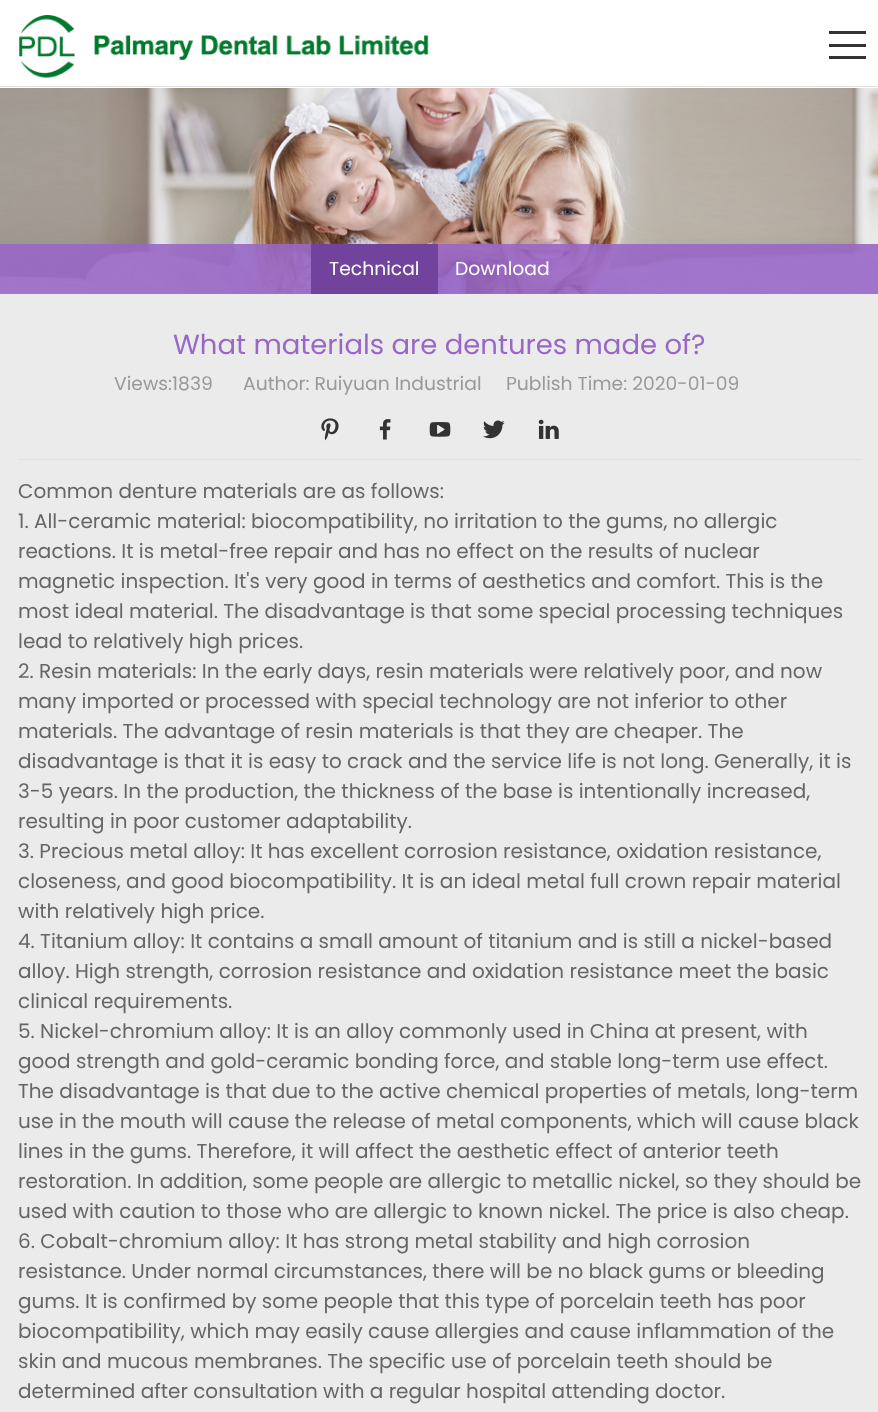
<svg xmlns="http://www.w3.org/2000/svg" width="878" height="1412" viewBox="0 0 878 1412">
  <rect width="100%" height="100%" fill="rgb(235,235,235)"/>
  <rect x="0" y="0" width="878" height="88" fill="rgb(255,255,255)"/>
  <rect x="0" y="86" width="878" height="1" fill="rgb(226,226,226)"/>
  <image x="19" y="15" width="410" height="63" href="pic1.png"/>
  <rect x="829" y="31" width="37" height="3" fill="rgb(51,51,51)"/>
  <rect x="829" y="44" width="37" height="3" fill="rgb(51,51,51)"/>
  <rect x="829" y="56" width="37" height="3" fill="rgb(51,51,51)"/>
  <image x="0" y="88" width="878" height="206" href="pic2.png"/>
  <rect x="0" y="244" width="878" height="50" fill="rgba(153,103,198,0.9)"/>
  <rect x="311" y="244" width="127" height="50" fill="rgb(114,67,157)"/>
  <g font-family="Poppins" font-size="18.75" fill="rgb(255,255,255)">
    <text x="329" y="275">Technical</text>
    <text x="455" y="275">Download</text>
  </g>
  <text x="173" y="354" font-family="Poppins" font-size="27.5" fill="rgb(153,103,198)">What materials are dentures made of?</text>
  <g font-family="Poppins" font-size="18.75" fill="rgb(153,153,153)">
    <text x="114" y="390">Views:1839</text>
    <text x="243" y="390">Author: Ruiyuan Industrial</text>
    <text x="506" y="390">Publish Time: 2020-01-09</text>
  </g>
  <image x="321" y="418" width="18" height="23" href="pic3.png"/>
  <image x="379" y="419" width="12" height="21" href="pic4.png"/>
  <image x="429" y="422" width="22" height="15" href="pic5.png"/>
  <image x="483" y="420" width="22" height="19" href="pic6.png"/>
  <image x="538" y="419" width="21" height="20" href="pic7.png"/>
  <rect x="18" y="459" width="843" height="1" fill="rgb(224,224,224)"/>
  <g font-family="Poppins" font-size="20" fill="rgb(102,102,102)">
    <text>
      <tspan x="18" y="498">Common denture materials are as follows:</tspan>
      <tspan x="18" y="528">1. All-ceramic material: biocompatibility, no irritation to the gums, no allergic</tspan>
      <tspan x="18" y="558">reactions. It is metal-free repair and has no effect on the results of nuclear</tspan>
      <tspan x="18" y="588">magnetic inspection. It's very good in terms of aesthetics and comfort. This is the</tspan>
      <tspan x="18" y="618">most ideal material. The disadvantage is that some special processing techniques</tspan>
      <tspan x="18" y="648">lead to relatively high prices.</tspan>
      <tspan x="18" y="678">2. Resin materials: In the early days, resin materials were relatively poor, and now</tspan>
      <tspan x="18" y="708">many imported or processed with special technology are not inferior to other</tspan>
      <tspan x="18" y="738">materials. The advantage of resin materials is that they are cheaper. The</tspan>
      <tspan x="18" y="768">disadvantage is that it is easy to crack and the service life is not long. Generally, it is</tspan>
      <tspan x="18" y="798">3-5 years. In the production, the thickness of the base is intentionally increased,</tspan>
      <tspan x="18" y="828">resulting in poor customer adaptability.</tspan>
      <tspan x="18" y="858">3. Precious metal alloy: It has excellent corrosion resistance, oxidation resistance,</tspan>
      <tspan x="18" y="888">closeness, and good biocompatibility. It is an ideal metal full crown repair material</tspan>
      <tspan x="18" y="918">with relatively high price.</tspan>
      <tspan x="18" y="948">4. Titanium alloy: It contains a small amount of titanium and is still a nickel-based</tspan>
      <tspan x="18" y="978">alloy. High strength, corrosion resistance and oxidation resistance meet the basic</tspan>
      <tspan x="18" y="1008">clinical requirements.</tspan>
      <tspan x="18" y="1038">5. Nickel-chromium alloy: It is an alloy commonly used in China at present, with</tspan>
      <tspan x="18" y="1068">good strength and gold-ceramic bonding force, and stable long-term use effect.</tspan>
      <tspan x="18" y="1098">The disadvantage is that due to the active chemical properties of metals, long-term</tspan>
      <tspan x="18" y="1128">use in the mouth will cause the release of metal components, which will cause black</tspan>
      <tspan x="18" y="1158">lines in the gums. Therefore, it will affect the aesthetic effect of anterior teeth</tspan>
      <tspan x="18" y="1188">restoration. In addition, some people are allergic to metallic nickel, so they should be</tspan>
      <tspan x="18" y="1218">used with caution to those who are allergic to known nickel. The price is also cheap.</tspan>
      <tspan x="18" y="1248">6. Cobalt-chromium alloy: It has strong metal stability and high corrosion</tspan>
      <tspan x="18" y="1278">resistance. Under normal circumstances, there will be no black gums or bleeding</tspan>
      <tspan x="18" y="1308">gums. It is confirmed by some people that this type of porcelain teeth has poor</tspan>
      <tspan x="18" y="1338">biocompatibility, which may easily cause allergies and cause inflammation of the</tspan>
      <tspan x="18" y="1368">skin and mucous membranes. The specific use of porcelain teeth should be</tspan>
      <tspan x="18" y="1398">determined after consultation with a regular hospital attending doctor.</tspan>
    </text>
  </g>
</svg>
